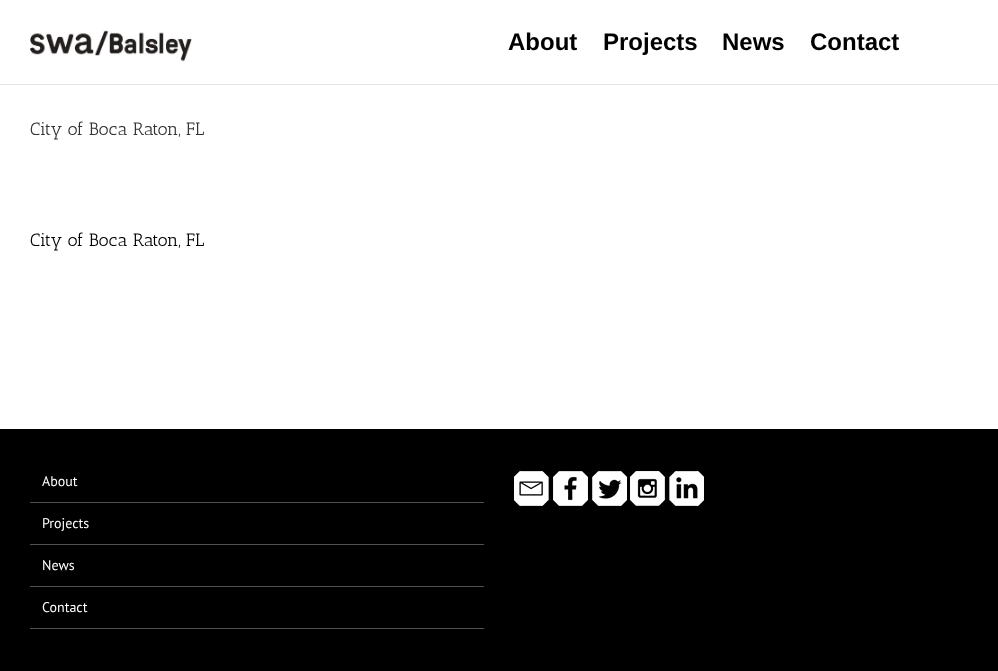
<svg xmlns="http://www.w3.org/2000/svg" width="998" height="671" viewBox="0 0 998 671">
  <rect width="100%" height="100%" fill="rgb(255,255,255)"/>
  <image x="30" y="30" width="162" height="32" href="pic1.png"/>
  <g font-family="Liberation Sans" font-size="24" font-weight="bold" fill="rgb(0,0,0)">
    <text x="508" y="50">About</text>
    <text x="603" y="50">Projects</text>
    <text x="722" y="50">News</text>
    <text x="810" y="50">Contact</text>
  </g>
  <rect x="0" y="84" width="998" height="1" fill="rgb(229,229,229)"/>
  <text x="30" y="135" font-family="Antic Slab" font-size="18" fill="rgb(51,51,51)">City of Boca Raton, FL</text>
  <text x="30" y="246" font-family="Antic Slab" font-size="18" fill="rgb(0,0,0)">City of Boca Raton, FL</text>
  <rect x="0" y="429" width="998" height="242" fill="rgb(0,0,0)"/>
  <rect x="30" y="502" width="454" height="1" fill="rgb(80,81,82)"/>
  <text x="42" y="486" font-family="PT Sans" font-size="14" fill="rgb(255,255,255)">About</text>
  <rect x="30" y="544" width="454" height="1" fill="rgb(80,81,82)"/>
  <text x="42" y="528" font-family="PT Sans" font-size="14" fill="rgb(255,255,255)">Projects</text>
  <rect x="30" y="586" width="454" height="1" fill="rgb(80,81,82)"/>
  <text x="42" y="570" font-family="PT Sans" font-size="14" fill="rgb(255,255,255)">News</text>
  <rect x="30" y="628" width="454" height="1" fill="rgb(80,81,82)"/>
  <text x="42" y="612" font-family="PT Sans" font-size="14" fill="rgb(255,255,255)">Contact</text>
  <image x="514" y="471" width="35" height="35" href="pic2.png"/>
  <image x="553" y="471" width="35" height="35" href="pic3.png"/>
  <image x="592" y="471" width="35" height="35" href="pic4.png"/>
  <image x="630" y="471" width="35" height="35" href="pic5.png"/>
  <image x="669" y="471" width="35" height="35" href="pic6.png"/>
</svg>
